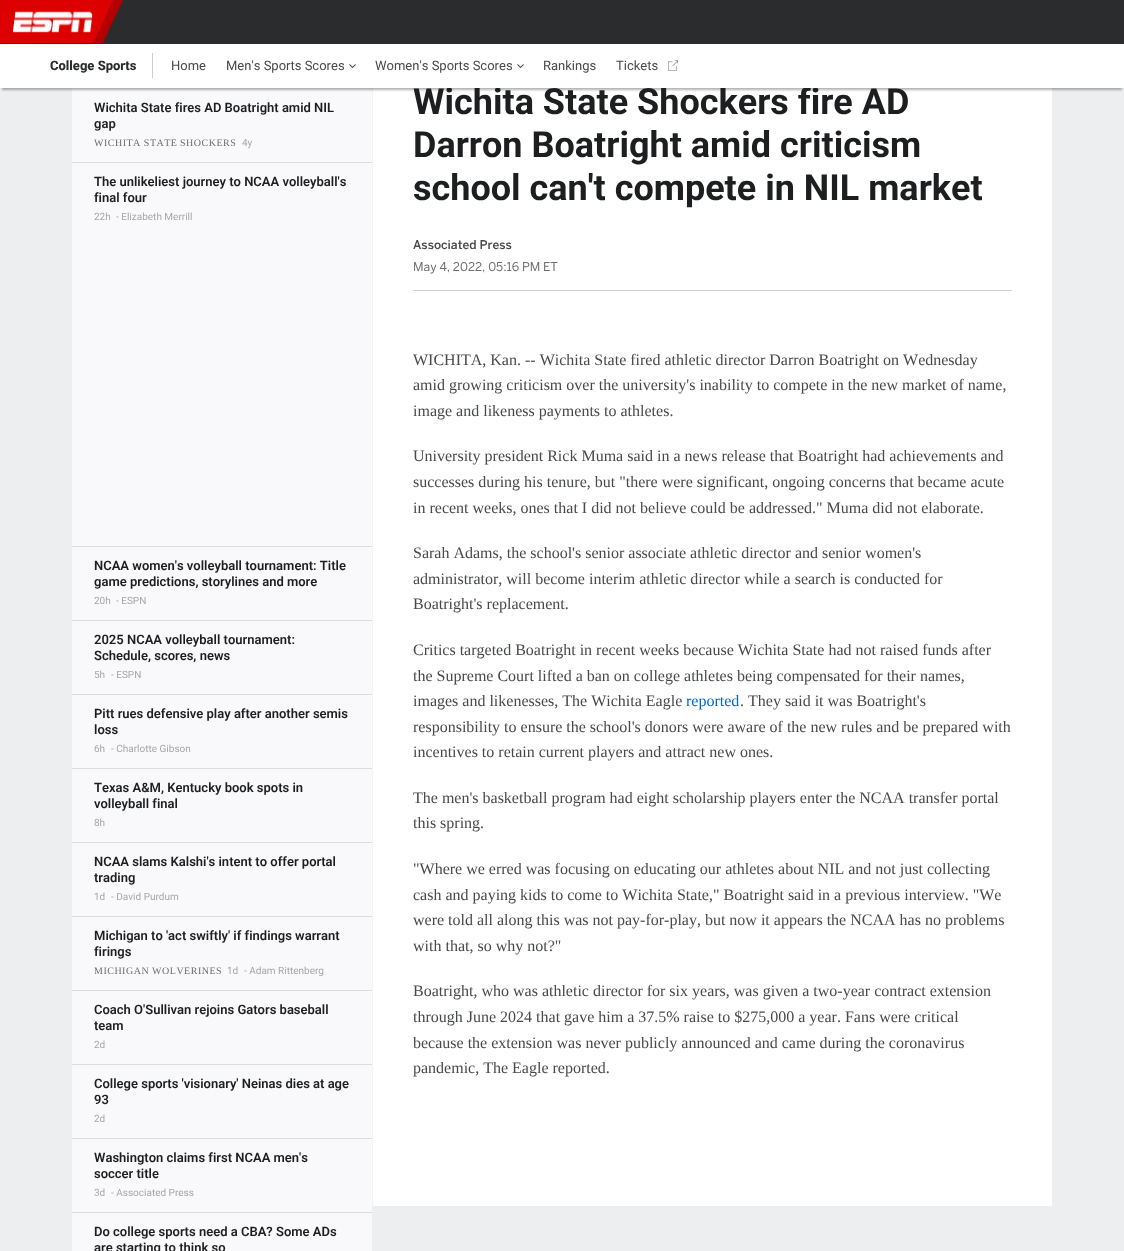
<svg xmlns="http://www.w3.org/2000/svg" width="1124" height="1251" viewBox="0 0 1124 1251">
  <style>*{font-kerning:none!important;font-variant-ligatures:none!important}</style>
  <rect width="100%" height="100%" fill="rgb(237,238,240)"/>
  <rect x="0" y="0" width="1124" height="44" fill="rgb(43,44,45)"/>
  <path d="M0 0H123L103 43H-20Z" fill="rgb(180,0,0)"/>
  <path d="M-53 0H113L93 43H-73Z" fill="rgb(221,0,0)"/>
  <image x="13" y="11" width="80" height="22" href="pic1.png"/>
  <rect x="72" y="88" width="300" height="1163" fill="rgb(249,249,251)"/>
  <rect x="372" y="88" width="1" height="1118" fill="rgb(241,242,243)"/>
  <rect x="373" y="88" width="679" height="1118" fill="rgb(255,255,255)"/>
  <rect x="2" y="50" width="1120" height="40" fill="rgba(0,0,0,0.3)" filter="blur(1px)"/>
  <text x="413" y="114" font-family="Roboto" font-size="36" font-weight="bold" fill="rgb(29,30,31)">Wichita State Shockers fire AD</text>
  <rect x="0" y="44" width="1124" height="44" rx="1" fill="rgb(255,255,255)"/>
  <text x="50" y="70" font-family="Roboto" font-size="13" font-weight="800" fill="rgb(43,44,45)">College Sports</text>
  <rect x="152" y="53" width="1" height="25" fill="rgb(203,204,206)"/>
  <g font-family="Roboto" font-size="13" fill="rgb(72,73,74)">
    <text x="171" y="70">Home</text>
    <text x="226" y="70">Men's Sports Scores</text>
  </g>
  <image x="349" y="64" width="7" height="5" href="pic2.png"/>
  <text x="375" y="70" font-family="Roboto" font-size="13" fill="rgb(72,73,74)">Women's Sports Scores</text>
  <image x="517" y="64" width="7" height="5" href="pic2.png"/>
  <g font-family="Roboto" font-size="13" fill="rgb(72,73,74)">
    <text x="543" y="70">Rankings</text>
    <text x="616" y="70">Tickets</text>
  </g>
  <image x="668" y="60" width="10" height="11" href="pic3.png"/>
  <g font-family="Roboto" font-size="13" font-weight="600" fill="rgb(29,30,31)">
    <text>
      <tspan x="94" y="112">Wichita State fires AD Boatright amid NIL</tspan>
      <tspan x="94" y="128">gap</tspan>
    </text>
  </g>
  <text x="94" y="146" font-family="Liberation Serif" font-size="10" letter-spacing="0.5" fill="rgb(108,109,111)">WICHITA STATE</text>
  <text x="180" y="146" font-family="Liberation Serif" font-size="10" letter-spacing="0.5" fill="rgb(108,109,111)">SHOCKERS</text>
  <text x="242" y="146" font-family="Roboto" font-size="10" fill="rgb(165,166,167)">4y</text>
  <rect x="72" y="162" width="300" height="1" fill="rgb(220,221,223)"/>
  <g font-family="Roboto" font-size="13" font-weight="600" fill="rgb(29,30,31)">
    <text>
      <tspan x="94" y="186">The unlikeliest journey to NCAA volleyball's</tspan>
      <tspan x="94" y="202">final four</tspan>
    </text>
  </g>
  <g font-family="Roboto" font-size="10" fill="rgb(165,166,167)">
    <text x="94" y="220">22h</text>
    <text x="116" y="220">- Elizabeth Merrill</text>
  </g>
  <rect x="72" y="546" width="300" height="1" fill="rgb(220,221,223)"/>
  <g font-family="Roboto" font-size="13" font-weight="600" fill="rgb(29,30,31)">
    <text>
      <tspan x="94" y="570">NCAA women's volleyball tournament: Title</tspan>
      <tspan x="94" y="586">game predictions, storylines and more</tspan>
    </text>
  </g>
  <g font-family="Roboto" font-size="10" fill="rgb(165,166,167)">
    <text x="94" y="604">20h</text>
    <text x="116" y="604">- ESPN</text>
  </g>
  <rect x="72" y="620" width="300" height="1" fill="rgb(220,221,223)"/>
  <g font-family="Roboto" font-size="13" font-weight="600" fill="rgb(29,30,31)">
    <text>
      <tspan x="94" y="644">2025 NCAA volleyball tournament:</tspan>
      <tspan x="94" y="660">Schedule, scores, news</tspan>
    </text>
  </g>
  <g font-family="Roboto" font-size="10" fill="rgb(165,166,167)">
    <text x="94" y="678">5h</text>
    <text x="111" y="678">- ESPN</text>
  </g>
  <rect x="72" y="694" width="300" height="1" fill="rgb(220,221,223)"/>
  <g font-family="Roboto" font-size="13" font-weight="600" fill="rgb(29,30,31)">
    <text>
      <tspan x="94" y="718">Pitt rues defensive play after another semis</tspan>
      <tspan x="94" y="734">loss</tspan>
    </text>
  </g>
  <g font-family="Roboto" font-size="10" fill="rgb(165,166,167)">
    <text x="94" y="752">6h</text>
    <text x="111" y="752">- Charlotte Gibson</text>
  </g>
  <rect x="72" y="768" width="300" height="1" fill="rgb(220,221,223)"/>
  <g font-family="Roboto" font-size="13" font-weight="600" fill="rgb(29,30,31)">
    <text>
      <tspan x="94" y="792">Texas A&amp;M, Kentucky book spots in</tspan>
      <tspan x="94" y="808">volleyball final</tspan>
    </text>
  </g>
  <text x="94" y="826" font-family="Roboto" font-size="10" fill="rgb(165,166,167)">8h</text>
  <rect x="72" y="842" width="300" height="1" fill="rgb(220,221,223)"/>
  <g font-family="Roboto" font-size="13" font-weight="600" fill="rgb(29,30,31)">
    <text>
      <tspan x="94" y="866">NCAA slams Kalshi's intent to offer portal</tspan>
      <tspan x="94" y="882">trading</tspan>
    </text>
  </g>
  <g font-family="Roboto" font-size="10" fill="rgb(165,166,167)">
    <text x="94" y="900">1d</text>
    <text x="111" y="900">- David Purdum</text>
  </g>
  <rect x="72" y="916" width="300" height="1" fill="rgb(220,221,223)"/>
  <g font-family="Roboto" font-size="13" font-weight="600" fill="rgb(29,30,31)">
    <text>
      <tspan x="94" y="940">Michigan to 'act swiftly' if findings warrant</tspan>
      <tspan x="94" y="956">firings</tspan>
    </text>
  </g>
  <text x="94" y="974" font-family="Liberation Serif" font-size="10" letter-spacing="0.5" fill="rgb(108,109,111)">MICHIGAN WOLVERINES</text>
  <g font-family="Roboto" font-size="10" fill="rgb(165,166,167)">
    <text x="227" y="974">1d</text>
    <text x="244" y="974">- Adam Rittenberg</text>
  </g>
  <rect x="72" y="990" width="300" height="1" fill="rgb(220,221,223)"/>
  <g font-family="Roboto" font-size="13" font-weight="600" fill="rgb(29,30,31)">
    <text>
      <tspan x="94" y="1014">Coach O'Sullivan rejoins Gators baseball</tspan>
      <tspan x="94" y="1030">team</tspan>
    </text>
  </g>
  <text x="94" y="1048" font-family="Roboto" font-size="10" fill="rgb(165,166,167)">2d</text>
  <rect x="72" y="1064" width="300" height="1" fill="rgb(220,221,223)"/>
  <g font-family="Roboto" font-size="13" font-weight="600" fill="rgb(29,30,31)">
    <text>
      <tspan x="94" y="1088">College sports 'visionary' Neinas dies at age</tspan>
      <tspan x="94" y="1104">93</tspan>
    </text>
  </g>
  <text x="94" y="1122" font-family="Roboto" font-size="10" fill="rgb(165,166,167)">2d</text>
  <rect x="72" y="1138" width="300" height="1" fill="rgb(220,221,223)"/>
  <g font-family="Roboto" font-size="13" font-weight="600" fill="rgb(29,30,31)">
    <text>
      <tspan x="94" y="1162">Washington claims first NCAA men's</tspan>
      <tspan x="94" y="1178">soccer title</tspan>
    </text>
  </g>
  <g font-family="Roboto" font-size="10" fill="rgb(165,166,167)">
    <text x="94" y="1196">3d</text>
    <text x="111" y="1196">- Associated Press</text>
  </g>
  <rect x="72" y="1212" width="300" height="1" fill="rgb(220,221,223)"/>
  <g font-family="Roboto" font-size="13" font-weight="600" fill="rgb(29,30,31)">
    <text>
      <tspan x="94" y="1236">Do college sports need a CBA? Some ADs</tspan>
      <tspan x="94" y="1252">are starting to think so</tspan>
    </text>
  </g>
  <g font-family="Roboto" font-size="36" font-weight="bold" fill="rgb(29,30,31)">
    <text>
      <tspan x="413" y="157">Darron Boatright amid criticism</tspan>
      <tspan x="413" y="200">school can't compete in NIL market</tspan>
    </text>
  </g>
  <rect x="413" y="290" width="599" height="1" fill="rgb(206,207,207)"/>
  <text x="413" y="249" font-family="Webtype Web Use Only" font-size="12" font-weight="500" fill="rgb(72,73,74)">Associated Press</text>
  <text x="413" y="271" font-family="Webtype Web Use Only" font-size="12" fill="rgb(108,109,111)">May 4, 2022, 05:16 PM ET</text>
  <g font-family="Liberation Serif" font-size="16" fill="rgb(72,73,74)">
    <text>
      <tspan x="413" y="365">WICHITA, Kan. -- Wichita State fired athletic director Darron Boatright on Wednesday</tspan>
      <tspan x="413" y="390">amid growing criticism over the university's inability to compete in the new market of name,</tspan>
      <tspan x="413" y="416">image and likeness payments to athletes.</tspan>
    </text>
    <text>
      <tspan x="413" y="461">University president Rick Muma said in a news release that Boatright had achievements and</tspan>
      <tspan x="413" y="487">successes during his tenure, but "there were significant, ongoing concerns that became acute</tspan>
      <tspan x="413" y="513">in recent weeks, ones that I did not believe could be addressed." Muma did not elaborate.</tspan>
    </text>
    <text>
      <tspan x="413" y="558">Sarah Adams, the school's senior associate athletic director and senior women's</tspan>
      <tspan x="413" y="584">administrator, will become interim athletic director while a search is conducted for</tspan>
      <tspan x="413" y="609">Boatright's replacement.</tspan>
    </text>
    <text>
      <tspan x="413" y="655">Critics targeted Boatright in recent weeks because Wichita State had not raised funds after</tspan>
      <tspan x="413" y="681">the Supreme Court lifted a ban on college athletes being compensated for their names,</tspan>
      <tspan x="413" y="706">images and likenesses, The Wichita Eagle</tspan>
    </text>
  </g>
  <text x="686" y="706" font-family="Liberation Serif" font-size="16" fill="rgb(0,102,204)">reported</text>
  <g font-family="Liberation Serif" font-size="16" fill="rgb(72,73,74)">
    <text x="740" y="706">. They said it was Boatright's</text>
    <text>
      <tspan x="413" y="732">responsibility to ensure the school's donors were aware of the new rules and be prepared with</tspan>
      <tspan x="413" y="757">incentives to retain current players and attract new ones.</tspan>
    </text>
    <text>
      <tspan x="413" y="803">The men's basketball program had eight scholarship players enter the NCAA transfer portal</tspan>
      <tspan x="413" y="828">this spring.</tspan>
    </text>
    <text>
      <tspan x="413" y="874">"Where we erred was focusing on educating our athletes about NIL and not just collecting</tspan>
      <tspan x="413" y="900">cash and paying kids to come to Wichita State," Boatright said in a previous interview. "We</tspan>
      <tspan x="413" y="925">were told all along this was not pay-for-play, but now it appears the NCAA has no problems</tspan>
      <tspan x="413" y="951">with that, so why not?"</tspan>
    </text>
    <text>
      <tspan x="413" y="996">Boatright, who was athletic director for six years, was given a two-year contract extension</tspan>
      <tspan x="413" y="1022">through June 2024 that gave him a 37.5% raise to $275,000 a year. Fans were critical</tspan>
      <tspan x="413" y="1048">because the extension was never publicly announced and came during the coronavirus</tspan>
      <tspan x="413" y="1073">pandemic, The Eagle reported.</tspan>
    </text>
  </g>
</svg>
